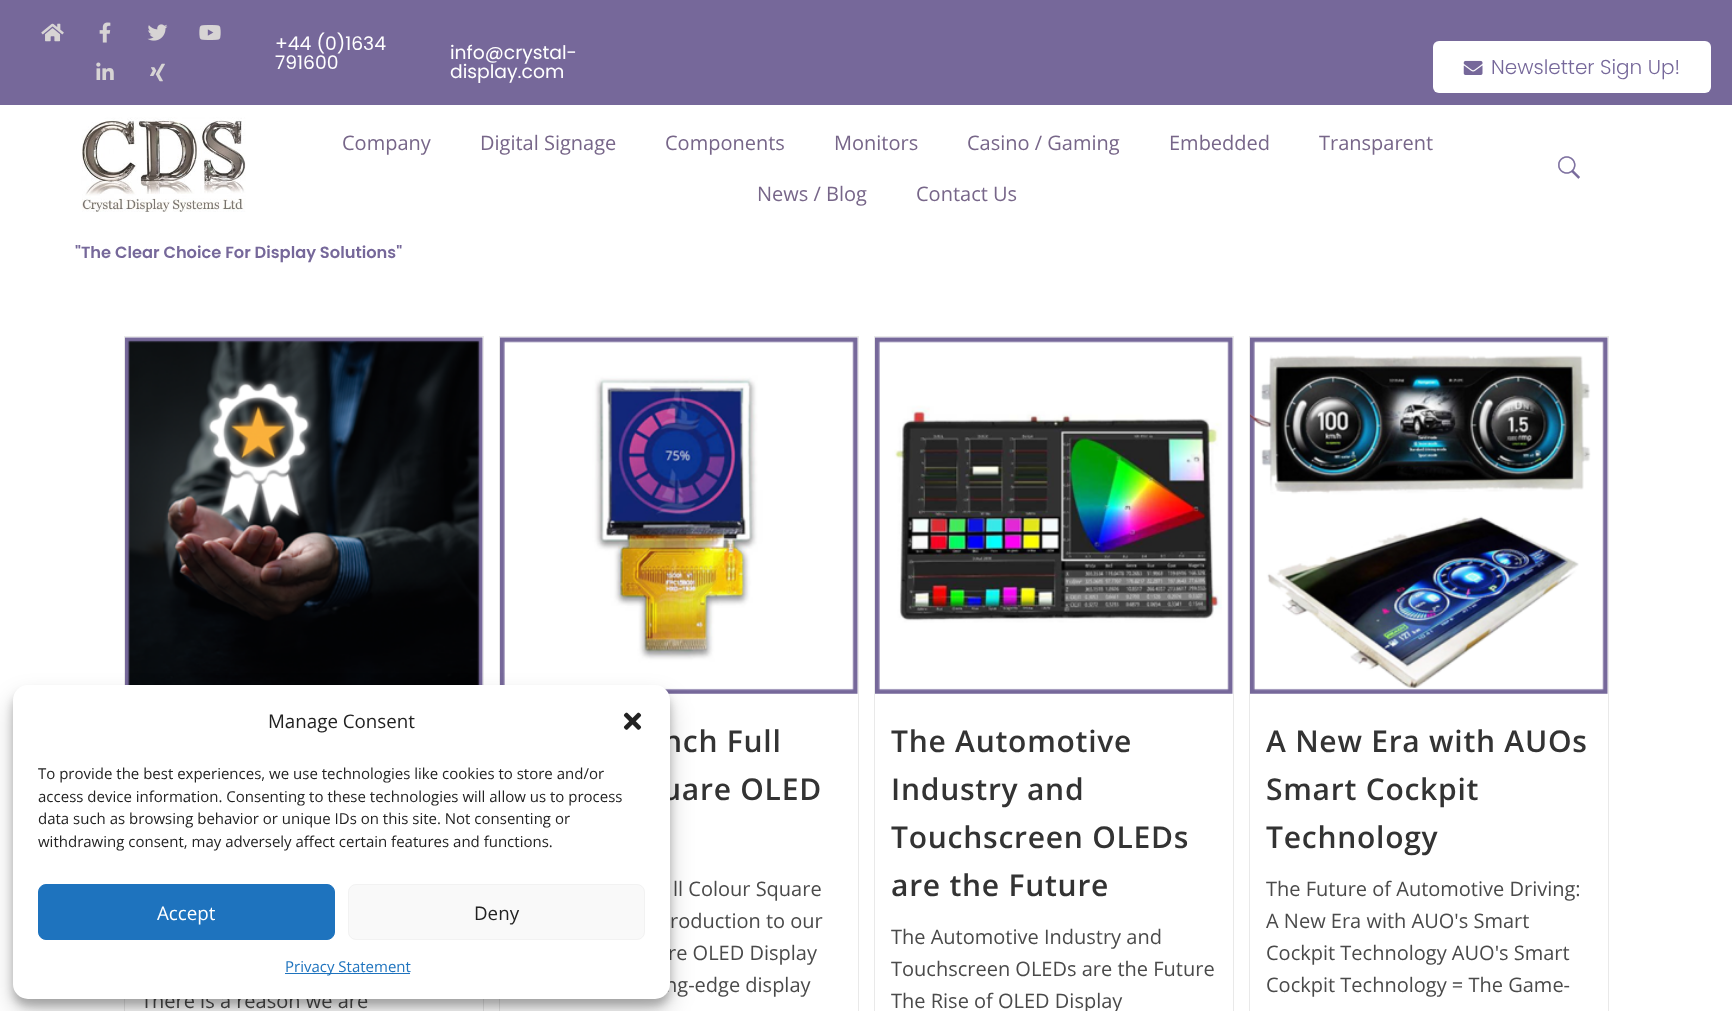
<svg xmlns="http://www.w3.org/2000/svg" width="1732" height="1011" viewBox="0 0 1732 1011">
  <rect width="100%" height="100%" fill="rgb(255,255,255)"/>
  <rect x="0" y="0" width="1732" height="105" fill="rgb(118,104,154)"/>
  <image x="41" y="23" width="23" height="19" href="pic1.png"/>
  <image x="99" y="22" width="12" height="21" href="pic2.png"/>
  <image x="147" y="24" width="21" height="17" href="pic3.png"/>
  <image x="199" y="25" width="22" height="15" href="pic4.png"/>
  <image x="96" y="62" width="18" height="18" href="pic5.png"/>
  <image x="150" y="63" width="15" height="19" href="pic6.png"/>
  <g font-family="Poppins" font-size="18.75" fill="rgb(255,255,255)">
    <text>
      <tspan x="275" y="50">+44 (0)1634</tspan>
      <tspan x="275" y="69">791600</tspan>
    </text>
    <text>
      <tspan x="450" y="59">info@crystal-</tspan>
      <tspan x="450" y="78">display.com</tspan>
    </text>
  </g>
  <rect x="1433" y="41" width="278" height="52" rx="6" fill="rgb(255,255,255)"/>
  <image x="1463" y="60" width="20" height="15" href="pic7.png"/>
  <text x="1491" y="74" font-family="Poppins" font-size="20" font-weight="300" fill="rgb(118,104,154)">Newsletter Sign Up!</text>
  <image x="81" y="117" width="165" height="95" href="pic8.png"/>
  <g font-family="Open Sans" font-size="20" fill="rgb(119,102,137)">
    <text x="342" y="150">Company</text>
    <text x="480" y="150">Digital Signage</text>
    <text x="665" y="150">Components</text>
    <text x="834" y="150">Monitors</text>
    <text x="967" y="150">Casino / Gaming</text>
    <text x="1169" y="150">Embedded</text>
    <text x="1319" y="150">Transparent</text>
    <text x="757" y="201">News / Blog</text>
    <text x="916" y="201">Contact Us</text>
  </g>
  <image x="1558" y="156" width="22" height="23" href="pic9.png"/>
  <text x="75" y="258" font-family="Poppins" font-size="16.25" font-weight="600" fill="rgb(118,104,154)">"The Clear Choice For Display Solutions"</text>
  <rect x="499.5" y="336.5" width="359" height="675" fill="none" stroke="rgb(233,233,233)"/>
  <image x="500" y="337" width="358" height="357" href="pic10.png"/>
  <g font-family="Open Sans" font-size="30" font-weight="600" letter-spacing="0.75" fill="rgb(51,51,51)">
    <text x="663" y="752">nch Full</text>
    <text x="662" y="800">uare OLED</text>
  </g>
  <g font-family="Open Sans" font-size="20" fill="rgb(74,74,74)">
    <text x="673" y="896">ll Colour Square</text>
    <text x="670" y="928">roduction to our</text>
    <text x="668" y="960">re OLED Display</text>
    <text x="665" y="992">ng-edge display</text>
  </g>
  <rect x="874.5" y="336.5" width="359" height="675" fill="none" stroke="rgb(233,233,233)"/>
  <image x="875" y="337" width="358" height="357" href="pic11.png"/>
  <g font-family="Open Sans" font-size="30" font-weight="600" letter-spacing="0.75" fill="rgb(51,51,51)">
    <text>
      <tspan x="891" y="752">The Automotive</tspan>
      <tspan x="891" y="800">Industry and</tspan>
      <tspan x="891" y="848">Touchscreen OLEDs</tspan>
      <tspan x="891" y="896">are the Future</tspan>
    </text>
  </g>
  <g font-family="Open Sans" font-size="20" fill="rgb(74,74,74)">
    <text>
      <tspan x="891" y="944">The Automotive Industry and</tspan>
      <tspan x="891" y="976">Touchscreen OLEDs are the Future</tspan>
      <tspan x="891" y="1008">The Rise of OLED Display</tspan>
    </text>
  </g>
  <rect x="1249.5" y="336.5" width="359" height="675" fill="none" stroke="rgb(233,233,233)"/>
  <image x="1250" y="337" width="358" height="357" href="pic12.png"/>
  <g font-family="Open Sans" font-size="30" font-weight="600" letter-spacing="0.75" fill="rgb(51,51,51)">
    <text>
      <tspan x="1266" y="752">A New Era with AUOs</tspan>
      <tspan x="1266" y="800">Smart Cockpit</tspan>
      <tspan x="1266" y="848">Technology</tspan>
    </text>
  </g>
  <g font-family="Open Sans" font-size="20" fill="rgb(74,74,74)">
    <text>
      <tspan x="1266" y="896">The Future of Automotive Driving:</tspan>
      <tspan x="1266" y="928">A New Era with AUO's Smart</tspan>
      <tspan x="1266" y="960">Cockpit Technology AUO's Smart</tspan>
      <tspan x="1266" y="992">Cockpit Technology = The Game-</tspan>
    </text>
  </g>
  <rect x="124.5" y="336.5" width="359" height="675" fill="none" stroke="rgb(233,233,233)"/>
  <image x="125" y="337" width="358" height="348" href="pic13.png"/>
  <text x="141" y="1008" font-family="Open Sans" font-size="20" fill="rgb(74,74,74)">There is a reason we are</text>
  <rect x="13" y="693" width="657" height="313" rx="15" fill="rgba(0,0,0,0.23)" filter="blur(4px)"/>
  <rect x="13" y="698" width="657" height="313" rx="15" fill="rgba(0,0,0,0.19)" filter="blur(12.5px)"/>
  <rect x="13" y="685" width="657" height="314" rx="15" fill="rgb(255,255,255)"/>
  <text x="268" y="728" font-family="Open Sans" font-size="18.75" fill="rgb(34,34,34)">Manage Consent</text>
  <image x="623" y="712" width="19" height="18" href="pic14.png"/>
  <g font-family="Open Sans" font-size="15" fill="rgb(34,34,34)">
    <text>
      <tspan x="38" y="779">To provide the best experiences, we use technologies like cookies to store and/or</tspan>
      <tspan x="38" y="802">access device information. Consenting to these technologies will allow us to process</tspan>
      <tspan x="38" y="824">data such as browsing behavior or unique IDs on this site. Not consenting or</tspan>
      <tspan x="38" y="847">withdrawing consent, may adversely affect certain features and functions.</tspan>
    </text>
  </g>
  <rect x="38.5" y="884.5" width="296" height="55" rx="7.5" fill="rgb(30,115,190)" stroke="rgb(30,115,190)"/>
  <text x="157" y="920" font-family="Open Sans" font-size="18.75" fill="rgb(255,255,255)">Accept</text>
  <rect x="348.5" y="884.5" width="296" height="55" rx="7.5" fill="rgb(249,249,249)" stroke="rgb(242,242,242)"/>
  <text x="474" y="920" font-family="Open Sans" font-size="18.75" fill="rgb(34,34,34)">Deny</text>
  <rect x="285" y="973" width="125" height="1" fill="rgb(30,115,190)"/>
  <text x="285" y="972" font-family="Open Sans" font-size="15" fill="rgb(30,115,190)">Privacy Statement</text>
</svg>
